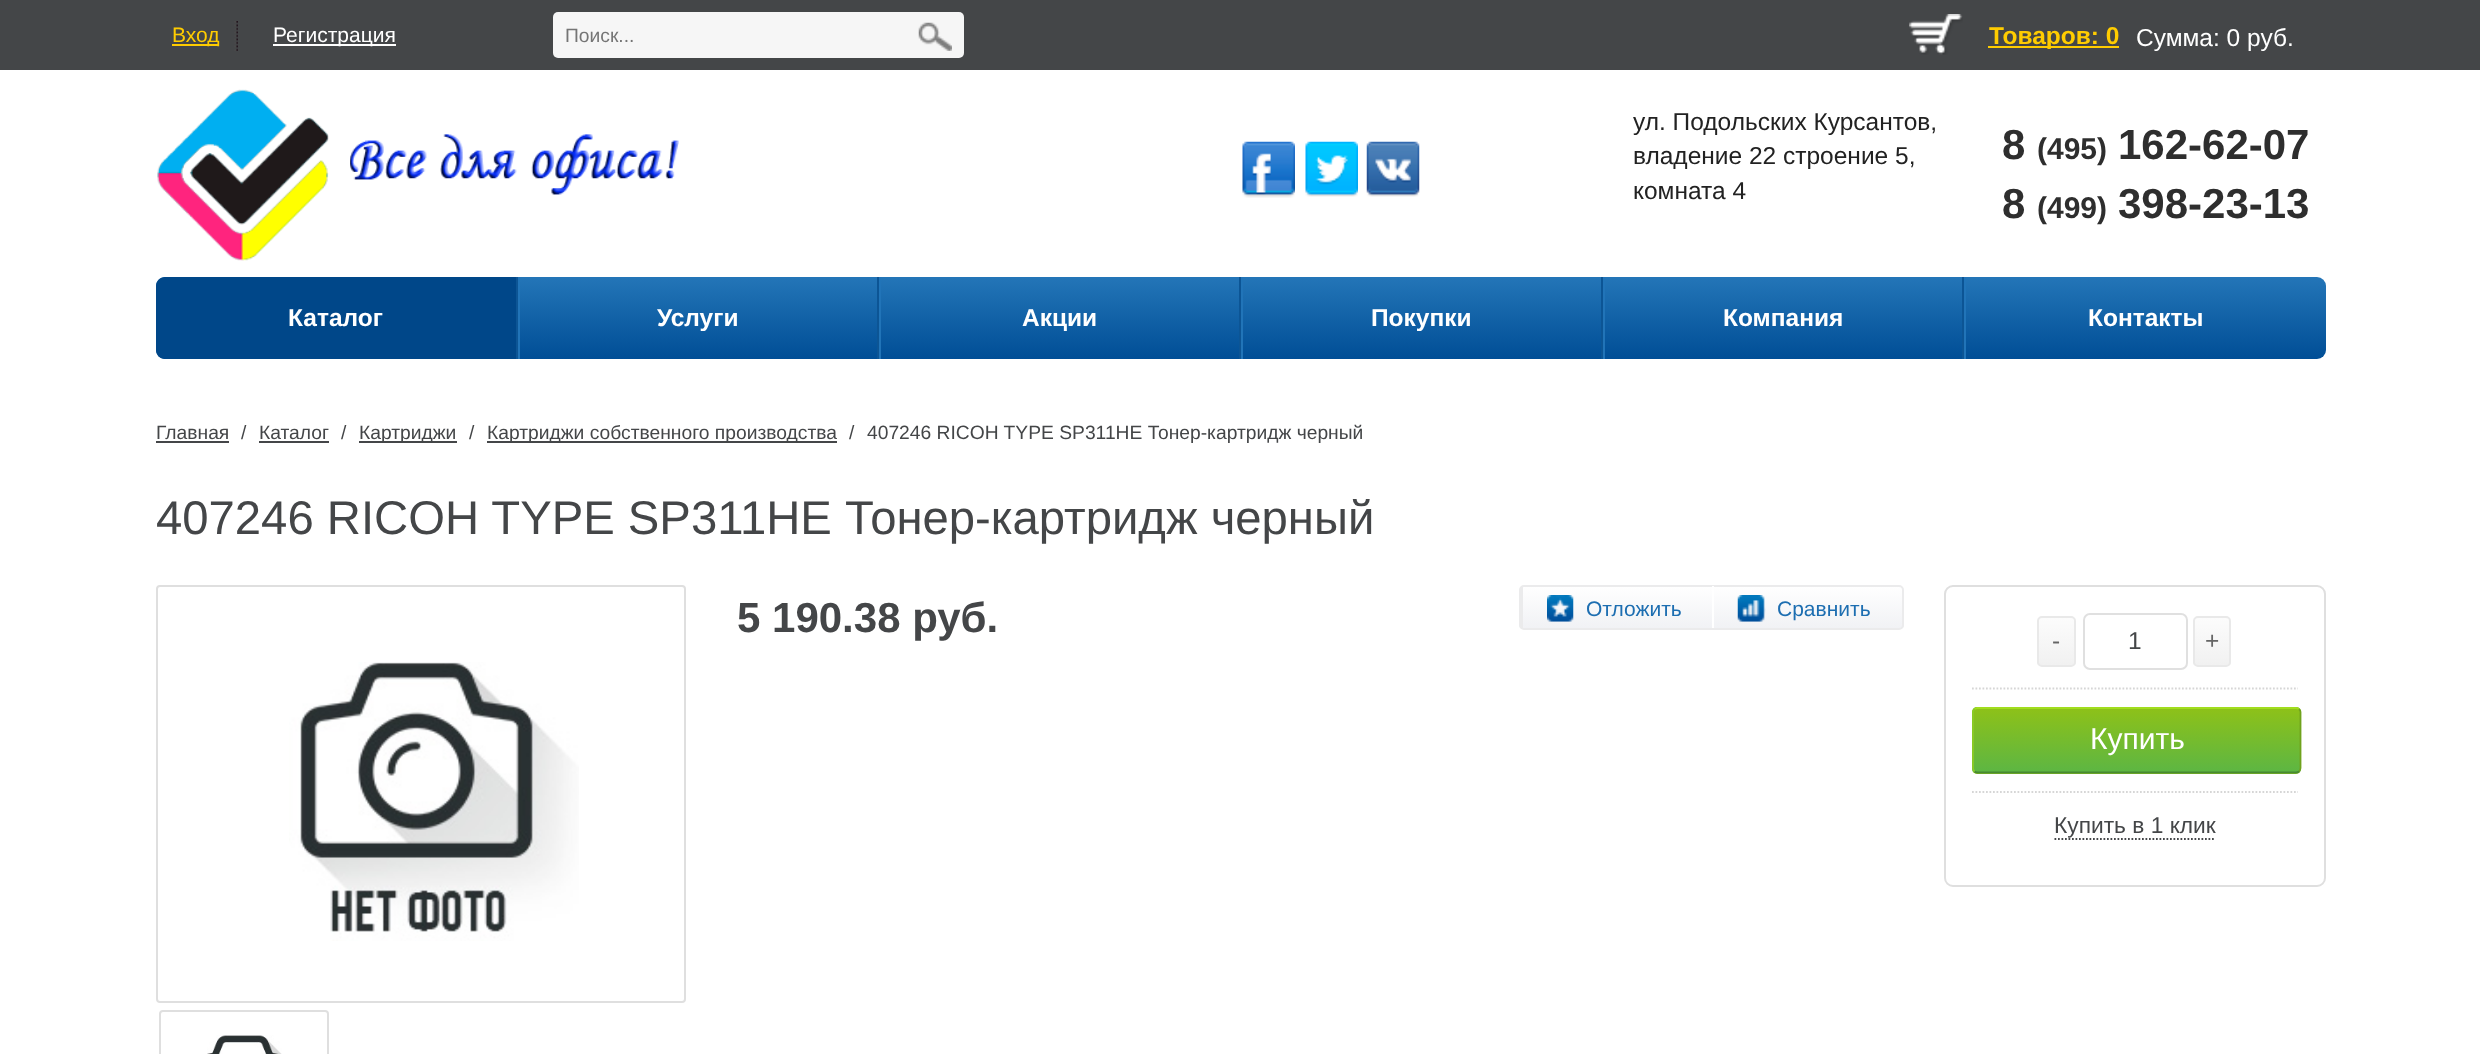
<svg xmlns="http://www.w3.org/2000/svg" width="2480" height="1054" viewBox="0 0 2480 1054">
  <defs>
    <linearGradient id="g1" gradientUnits="userSpaceOnUse" x1="1241" y1="276" x2="1241" y2="359"><stop offset="0" stop-color="rgb(36,118,184)"/><stop offset="1" stop-color="rgb(0,78,150)"/></linearGradient>
    <clipPath id="clip1"><rect x="1519" y="585" width="385" height="45" rx="5"/></clipPath>
    <linearGradient id="g2" gradientUnits="userSpaceOnUse" x1="1712" y1="586" x2="1712" y2="628"><stop offset="0" stop-color="rgb(255,255,255)"/><stop offset="0.99" stop-color="rgb(241,242,245)"/></linearGradient>
    <clipPath id="clip2"><rect x="2037" y="616" width="39" height="51" rx="5"/></clipPath>
    <linearGradient id="g3" gradientUnits="userSpaceOnUse" x1="2056" y1="618" x2="2056" y2="665"><stop offset="0" stop-color="rgb(252,252,252)"/><stop offset="1" stop-color="rgb(241,241,241)"/></linearGradient>
    <clipPath id="clip3"><rect x="2193" y="616" width="38" height="51" rx="5"/></clipPath>
    <linearGradient id="g4" gradientUnits="userSpaceOnUse" x1="2212" y1="618" x2="2212" y2="665"><stop offset="0" stop-color="rgb(252,252,252)"/><stop offset="1" stop-color="rgb(241,241,241)"/></linearGradient>
    <clipPath id="clip4"><rect x="1972" y="707" width="329" height="67" rx="5"/></clipPath>
    <linearGradient id="g5" gradientUnits="userSpaceOnUse" x1="2137" y1="646" x2="2137" y2="709"><stop offset="0" stop-color="rgb(141,193,25)"/><stop offset="1" stop-color="rgb(93,182,67)"/></linearGradient>
    <linearGradient id="g6" gradientUnits="userSpaceOnUse" x1="2137" y1="709" x2="2137" y2="772"><stop offset="0" stop-color="rgb(141,193,25)"/><stop offset="1" stop-color="rgb(93,182,67)"/></linearGradient>
    <linearGradient id="g7" gradientUnits="userSpaceOnUse" x1="2137" y1="772" x2="2137" y2="835"><stop offset="0" stop-color="rgb(141,193,25)"/><stop offset="1" stop-color="rgb(93,182,67)"/></linearGradient>
  </defs>
  <rect width="100%" height="100%" fill="rgb(255,255,255)"/>
  <rect x="0" y="0" width="2480" height="70" fill="rgb(68,70,72)"/>
  <rect x="172" y="44" width="47" height="2" fill="rgb(255,204,0)"/>
  <text x="172" y="42" font-family="Liberation Sans" font-size="21" fill="rgb(255,204,0)">Вход</text>
  <image x="234" y="21" width="4" height="30" href="pic1.png"/>
  <rect x="273" y="44" width="123" height="2" fill="rgb(255,255,255)"/>
  <text x="273" y="42" font-family="Liberation Sans" font-size="21" fill="rgb(255,255,255)">Регистрация</text>
  <rect x="553" y="12" width="411" height="46" rx="5" fill="rgb(246,246,246)"/>
  <text x="565" y="42" font-family="Liberation Sans" font-size="19.25" fill="rgb(117,117,117)">Поиск...</text>
  <image x="918" y="22" width="34" height="29" href="pic2.png"/>
  <image x="1909" y="14" width="54" height="41" href="pic3.png"/>
  <rect x="1988" y="46" width="131" height="2" fill="rgb(255,204,0)"/>
  <text x="1989" y="44" font-family="Liberation Sans" font-size="24.5" font-weight="bold" fill="rgb(255,204,0)">Товаров: 0</text>
  <text x="2136" y="46" font-family="Liberation Sans" font-size="24.5" fill="rgb(255,255,255)">Сумма: 0 руб.</text>
  <image x="157" y="89" width="522" height="172" href="pic4.png"/>
  <image x="1242" y="141" width="53" height="57" href="pic5.png"/>
  <image x="1305" y="141" width="53" height="56" href="pic6.png"/>
  <image x="1366" y="141" width="54" height="56" href="pic7.png"/>
  <g font-family="Liberation Sans" font-size="24.5" fill="rgb(34,34,34)">
    <text>
      <tspan x="1633" y="130">ул. Подольских Курсантов,</tspan>
      <tspan x="1633" y="164">владение 22 строение 5,</tspan>
      <tspan x="1633" y="199">комната 4</tspan>
    </text>
  </g>
  <text x="2002" y="159" font-family="Liberation Sans" font-size="42" font-weight="bold" fill="rgb(46,46,46)">8</text>
  <text x="2037" y="159" font-family="Liberation Sans" font-size="30" font-weight="bold" fill="rgb(46,46,46)">(495)</text>
  <g font-family="Liberation Sans" font-size="42" font-weight="bold" fill="rgb(46,46,46)">
    <text x="2118" y="159">162-62-07</text>
    <text x="2002" y="218">8</text>
  </g>
  <text x="2037" y="218" font-family="Liberation Sans" font-size="30" font-weight="bold" fill="rgb(46,46,46)">(499)</text>
  <text x="2118" y="218" font-family="Liberation Sans" font-size="42" font-weight="bold" fill="rgb(46,46,46)">398-23-13</text>
  <rect x="156" y="277" width="2170" height="82" rx="9" fill="url(#g1)"/>
  <path d="M165 277H518V359H165C160 359 156 355 156 350V286C156 281 160 277 165 277Z" fill="rgb(0,71,137)"/>
  <rect x="516" y="277" width="2" height="82" fill="rgb(12,85,149)"/>
  <text x="288" y="326" font-family="Liberation Sans" font-size="24.5" font-weight="bold" fill="rgb(255,255,255)">Каталог</text>
  <rect x="877" y="277" width="2" height="82" fill="rgb(12,85,149)"/>
  <rect x="518" y="277" width="2" height="82" fill="rgb(33,116,184)"/>
  <text x="657" y="326" font-family="Liberation Sans" font-size="24.5" font-weight="bold" fill="rgb(255,255,255)">Услуги</text>
  <rect x="1239" y="277" width="2" height="82" fill="rgb(12,85,149)"/>
  <rect x="879" y="277" width="2" height="82" fill="rgb(33,116,184)"/>
  <text x="1022" y="326" font-family="Liberation Sans" font-size="24.5" font-weight="bold" fill="rgb(255,255,255)">Акции</text>
  <rect x="1601" y="277" width="2" height="82" fill="rgb(12,85,149)"/>
  <rect x="1241" y="277" width="2" height="82" fill="rgb(33,116,184)"/>
  <text x="1371" y="326" font-family="Liberation Sans" font-size="24.5" font-weight="bold" fill="rgb(255,255,255)">Покупки</text>
  <rect x="1962" y="277" width="2" height="82" fill="rgb(12,85,149)"/>
  <rect x="1603" y="277" width="2" height="82" fill="rgb(33,116,184)"/>
  <text x="1723" y="326" font-family="Liberation Sans" font-size="24.5" font-weight="bold" fill="rgb(255,255,255)">Компания</text>
  <rect x="1964" y="277" width="2" height="82" fill="rgb(33,116,184)"/>
  <text x="2088" y="326" font-family="Liberation Sans" font-size="24.5" font-weight="bold" fill="rgb(255,255,255)">Контакты</text>
  <text x="156" y="439" font-family="Liberation Sans" font-size="19.25" fill="rgb(68,70,72)">Главная</text>
  <rect x="156" y="441" width="73" height="2" fill="rgb(68,70,72)"/>
  <g font-family="Liberation Sans" font-size="19.25" fill="rgb(68,70,72)">
    <text x="241" y="439">/</text>
    <text x="259" y="439">Каталог</text>
  </g>
  <rect x="259" y="441" width="70" height="2" fill="rgb(68,70,72)"/>
  <text x="341" y="439" font-family="Liberation Sans" font-size="19.25" fill="rgb(68,70,72)">/</text>
  <rect x="359" y="441" width="98" height="2" fill="rgb(68,70,72)"/>
  <g font-family="Liberation Sans" font-size="19.25" fill="rgb(68,70,72)">
    <text x="359" y="439">Картриджи</text>
    <text x="469" y="439">/</text>
  </g>
  <rect x="487" y="441" width="350" height="2" fill="rgb(68,70,72)"/>
  <g font-family="Liberation Sans" font-size="19.25" fill="rgb(68,70,72)">
    <text x="487" y="439">Картриджи собственного производства</text>
    <text x="849" y="439">/</text>
    <text x="867" y="439">407246 RICOH TYPE SP311HE Тонер-картридж черный</text>
  </g>
  <text x="156" y="534" font-family="Liberation Sans" font-size="47.25" fill="rgb(68,70,72)">407246 RICOH TYPE SP311HE Тонер-картридж черный</text>
  <rect x="157" y="586" width="528" height="416" rx="3" fill="none" stroke="rgb(223,223,223)" stroke-width="2"/>
  <image x="289" y="662" width="290" height="279" href="pic8.png"/>
  <rect x="160" y="1011" width="168" height="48" rx="3" fill="none" stroke="rgb(223,223,223)" stroke-width="2"/>
  <image x="207" y="1035" width="75" height="19" href="pic9.png"/>
  <text x="737" y="632" font-family="Liberation Sans" font-size="42" font-weight="bold" fill="rgb(68,70,72)">5 190.38 руб.</text>
  <g clip-path="url(#clip1)">
    <rect x="1519" y="586" width="385" height="42" fill="url(#g2)"/>
  </g>
  <rect x="1520" y="586" width="383" height="43" rx="4" fill="none" stroke="rgb(235,235,236)" stroke-width="2"/>
  <rect x="1521" y="586" width="2" height="42" fill="rgb(235,235,236)"/>
  <image x="1547" y="595" width="27" height="27" href="pic10.png"/>
  <text x="1586" y="616" font-family="Liberation Sans" font-size="21" fill="rgb(29,110,177)">Отложить</text>
  <rect x="1712" y="586" width="2" height="42" fill="rgb(255,255,255)"/>
  <image x="1737" y="595" width="29" height="27" href="pic11.png"/>
  <text x="1777" y="616" font-family="Liberation Sans" font-size="21" fill="rgb(29,110,177)">Сравнить</text>
  <rect x="1945" y="586" width="380" height="300" rx="8" fill="none" stroke="rgb(223,223,223)" stroke-width="2"/>
  <path d="M1972 688.5H2298" fill="none" stroke="rgb(214,214,214)" stroke-width="1.8" stroke-dasharray="1.75 1.75"/>
  <g clip-path="url(#clip2)">
    <rect x="2037" y="618" width="39" height="47" fill="url(#g3)"/>
  </g>
  <rect x="2038" y="617" width="37" height="49" rx="4" fill="none" stroke="rgb(233,233,233)" stroke-width="2"/>
  <text x="2052" y="649" font-family="Liberation Sans" font-size="24.5" fill="rgb(101,101,101)">-</text>
  <rect x="2084" y="614" width="103" height="55" rx="6" fill="none" stroke="rgb(224,224,224)" stroke-width="2"/>
  <text x="2128" y="649" font-family="Liberation Sans" font-size="24.5" fill="rgb(68,70,72)">1</text>
  <g clip-path="url(#clip3)">
    <rect x="2193" y="618" width="38" height="47" fill="url(#g4)"/>
  </g>
  <rect x="2194" y="617" width="36" height="49" rx="4" fill="none" stroke="rgb(233,233,233)" stroke-width="2"/>
  <text x="2205" y="649" font-family="Liberation Sans" font-size="24.5" fill="rgb(101,101,101)">+</text>
  <path d="M1972 792H2298" fill="none" stroke="rgb(214,214,214)" stroke-width="1.8" stroke-dasharray="1.75 1.75"/>
  <g clip-path="url(#clip4)">
    <rect x="1972" y="707" width="329" height="2" fill="url(#g5)"/>
    <rect x="1972" y="709" width="329" height="63" fill="url(#g6)"/>
    <rect x="1972" y="772" width="329" height="2" fill="url(#g7)"/>
  </g>
  <path d="M1974.5 709C1975 708.5 1976.5 708 1977.5 708H2296C2297 708 2298.5 708.5 2299 709" fill="none" stroke="rgb(161,221,29)" stroke-width="1.8"/>
  <path d="M2299 709C2300 710 2300.5 711 2300.5 712V768C2300.5 769.5 2300 770.5 2299 771.5" fill="none" stroke="rgb(111,162,29)" stroke-width="1.8"/>
  <path d="M2299 771.5C2298.5 772 2297 772.5 2296 772.5H1977.5C1976.5 772.5 1975 772 1974.5 771.5" fill="none" stroke="rgb(72,138,50)" stroke-width="1.8"/>
  <path d="M1974.5 771.5C1973.5 770.5 1973 769.5 1973 768V712C1973 711 1973.5 710 1974.5 709" fill="none" stroke="rgb(139,203,37)" stroke-width="1.8"/>
  <text x="2090" y="749" font-family="Liberation Sans" font-size="30" fill="rgb(255,255,255)">Купить</text>
  <text x="2054" y="833" font-family="Liberation Sans" font-size="22.75" fill="rgb(68,70,72)">Купить в 1 клик</text>
  <path d="M2054.5 839H2215.5" fill="none" stroke="rgb(68,70,72)" stroke-width="1.8" stroke-dasharray="1.75 1.75"/>
</svg>
